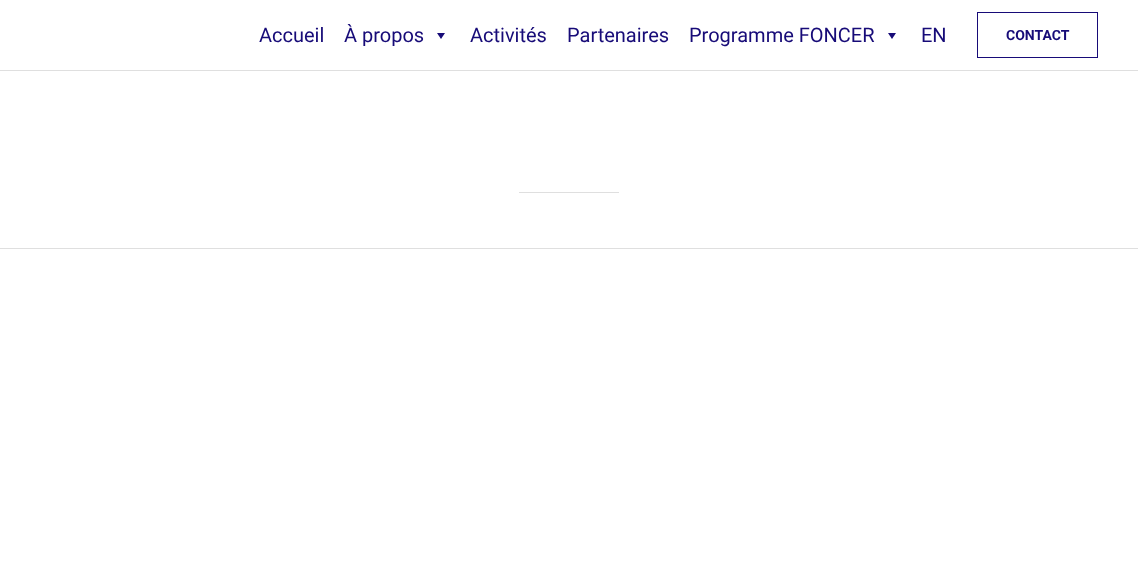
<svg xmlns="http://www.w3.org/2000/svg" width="1138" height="570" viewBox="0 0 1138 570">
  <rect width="100%" height="100%" fill="rgb(255,255,255)"/>
  <g font-family="Roboto" font-size="20" fill="rgb(23,11,120)">
    <text x="259" y="42">Accueil</text>
    <text x="344" y="42">À propos</text>
  </g>
  <path d="M445 33L441 39L437 33Z" fill="rgb(23,11,120)"/>
  <g font-family="Roboto" font-size="20" fill="rgb(23,11,120)">
    <text x="470" y="42">Activités</text>
    <text x="567" y="42">Partenaires</text>
    <text x="689" y="42">Programme FONCER</text>
  </g>
  <path d="M896 33L892 39L888 33Z" fill="rgb(23,11,120)"/>
  <text x="921" y="42" font-family="Roboto" font-size="20" fill="rgb(23,11,120)">EN</text>
  <rect x="977.5" y="12.5" width="120" height="45" fill="none" stroke="rgb(23,11,120)"/>
  <text x="1006" y="40" font-family="Roboto" font-size="14" font-weight="bold" fill="rgb(23,11,120)">CONTACT</text>
  <rect x="0" y="70" width="1138" height="1" fill="rgb(223,223,223)"/>
  <rect x="0" y="248" width="1138" height="1" fill="rgb(223,223,223)"/>
  <rect x="519" y="192" width="100" height="1" fill="rgb(223,223,223)"/>
</svg>
